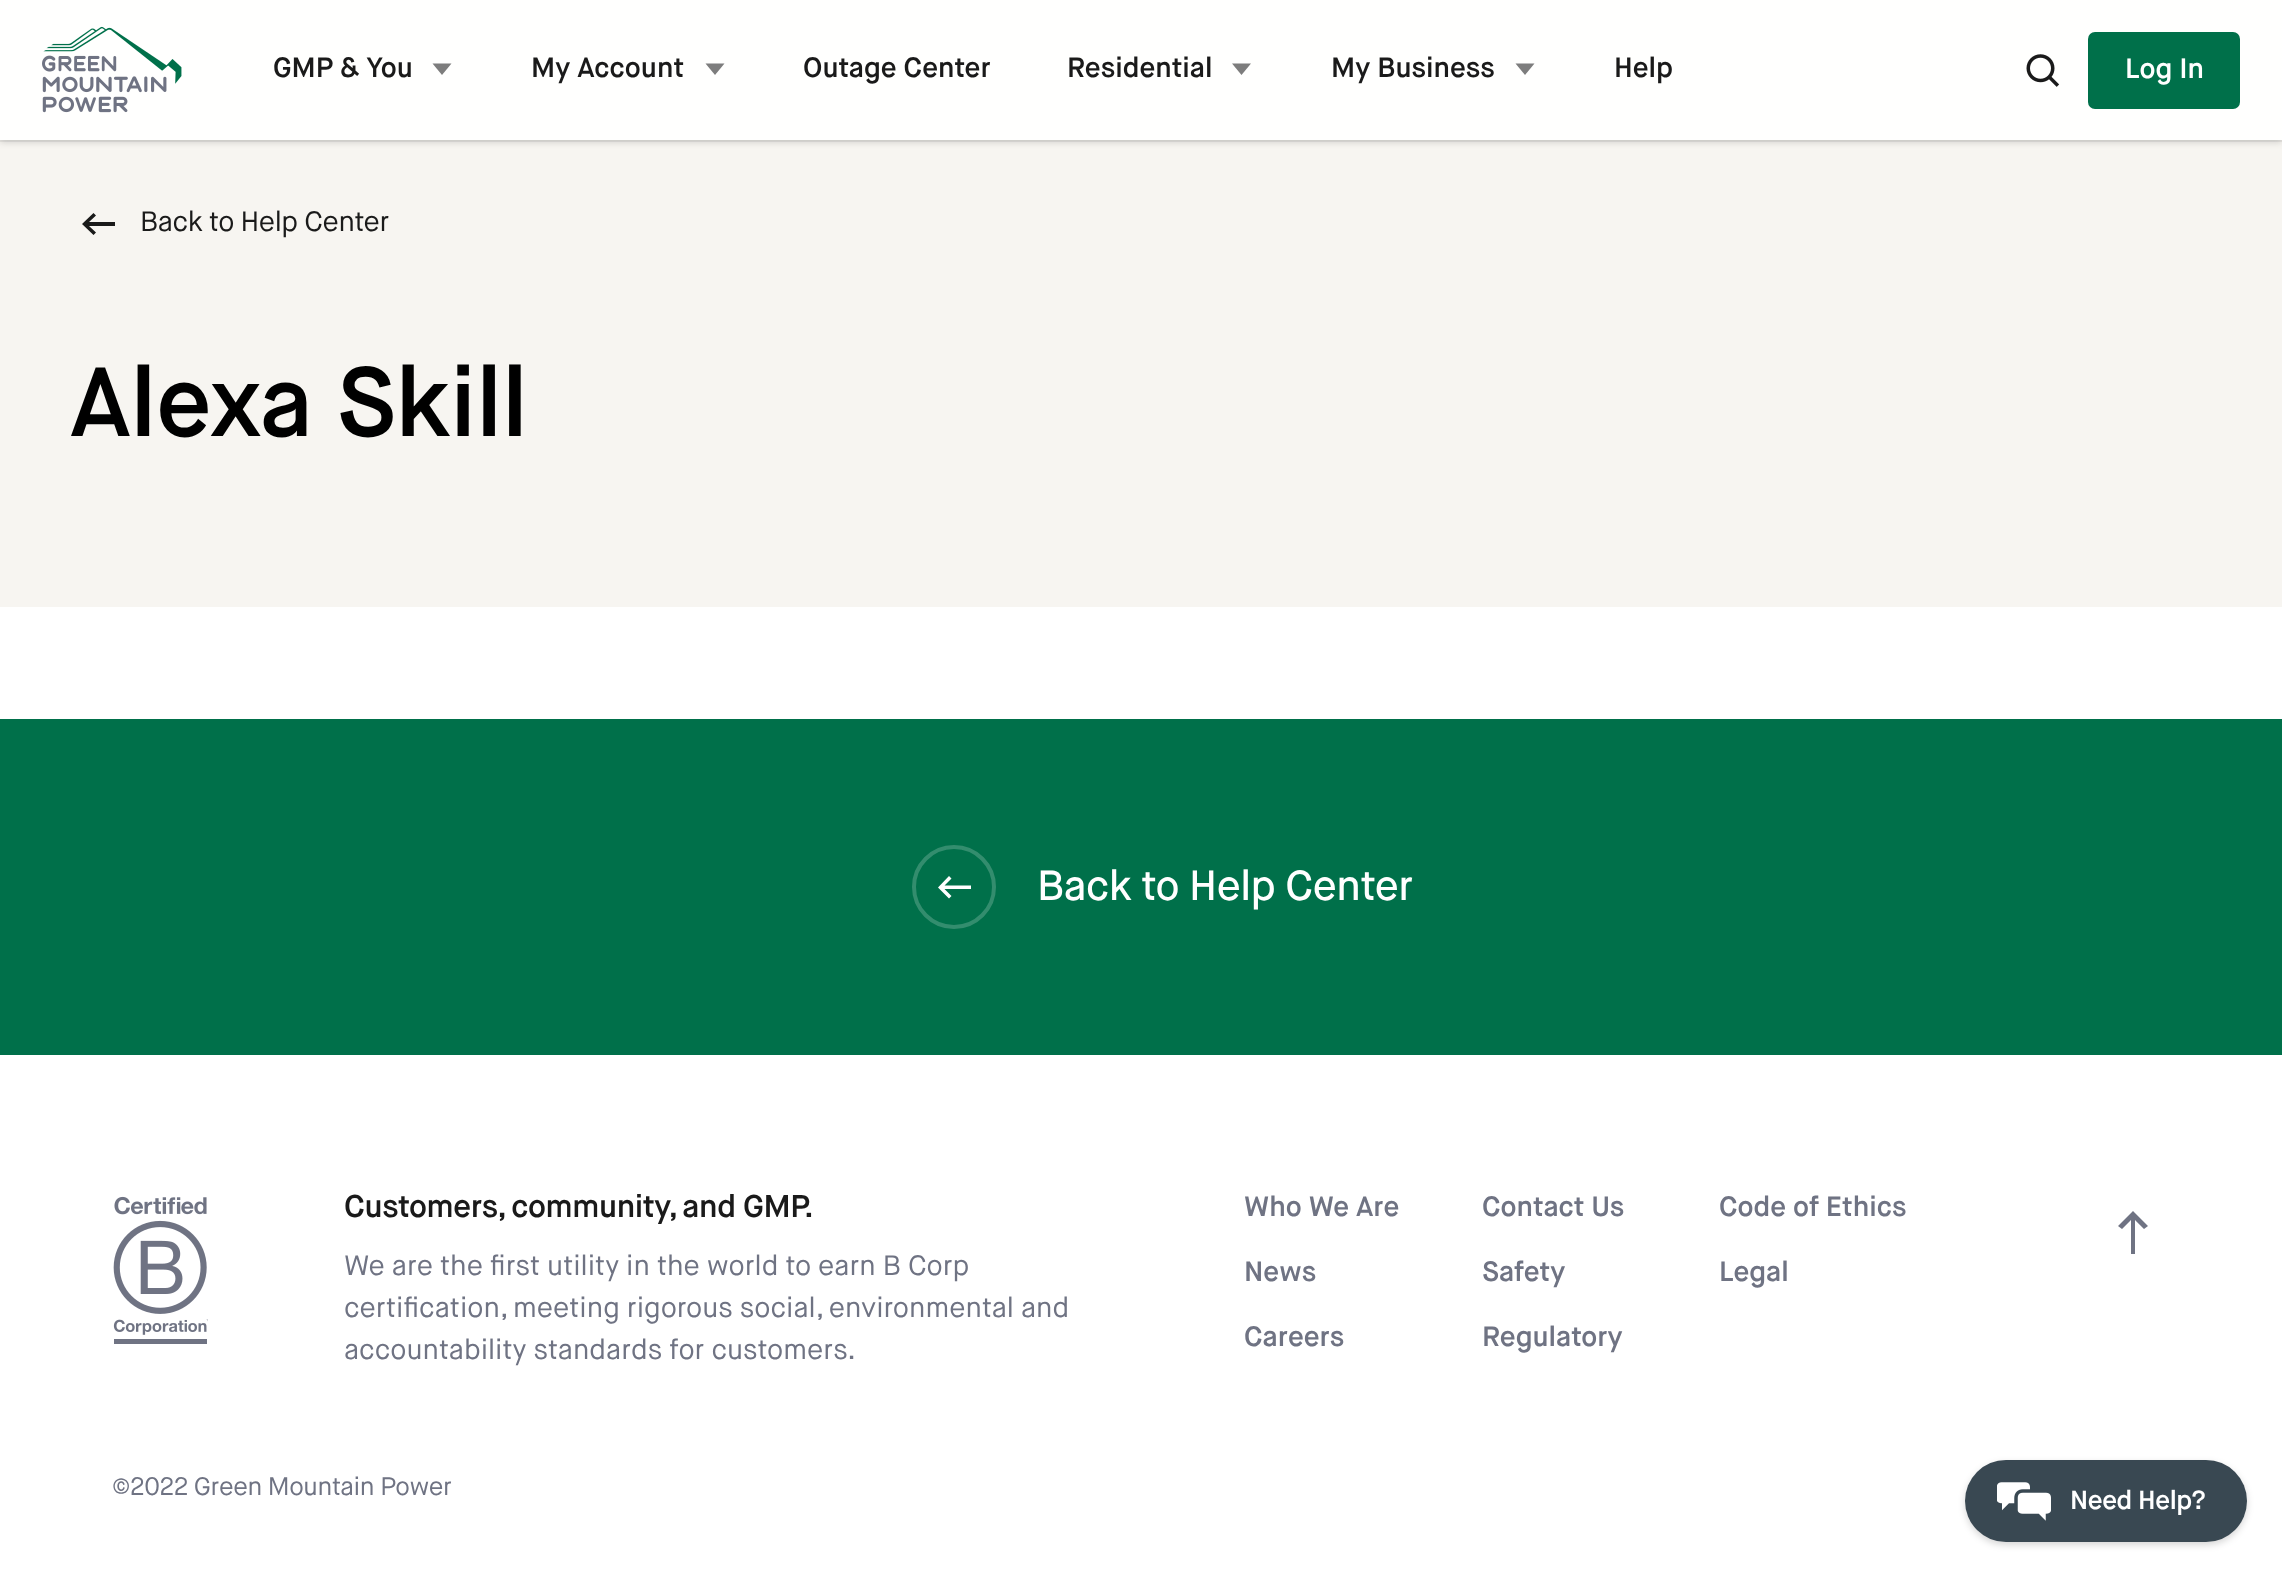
<svg xmlns="http://www.w3.org/2000/svg" width="2282" height="1576" viewBox="0 0 2282 1576">
  <rect width="100%" height="100%" fill="rgb(255,255,255)"/>
  <rect x="0" y="140" width="2282" height="467" fill="rgb(247,245,241)"/>
  <rect x="0" y="2" width="2282" height="140" fill="rgba(0,0,0,0.16)" filter="blur(3.5px)"/>
  <rect x="0" y="140" width="2282" height="2" fill="rgba(0,0,0,0.06)"/>
  <rect x="0" y="0" width="2282" height="140" fill="rgb(255,255,254)"/>
  <image x="42" y="26" width="140" height="87" href="pic1.png"/>
  <text x="273" y="77" font-family="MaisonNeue" font-size="28" font-weight="600" fill="rgb(26,26,26)">GMP &amp; You</text>
  <path d="M442 75L451.5 63.5H432.5Z" fill="rgb(125,125,125)"/>
  <text x="531" y="77" font-family="MaisonNeue" font-size="28" font-weight="600" fill="rgb(26,26,26)">My Account</text>
  <path d="M715 75L724.5 63.5H705.5Z" fill="rgb(125,125,125)"/>
  <g font-family="MaisonNeue" font-size="28" font-weight="600" fill="rgb(26,26,26)">
    <text x="803" y="77">Outage Center</text>
    <text x="1067" y="77">Residential</text>
  </g>
  <path d="M1241.5 75L1251 63.5H1232Z" fill="rgb(125,125,125)"/>
  <text x="1331" y="77" font-family="MaisonNeue" font-size="28" font-weight="600" fill="rgb(26,26,26)">My Business</text>
  <path d="M1525 75L1534.5 63.5H1515.5Z" fill="rgb(125,125,125)"/>
  <text x="1614" y="77" font-family="MaisonNeue" font-size="28" font-weight="600" fill="rgb(26,26,26)">Help</text>
  <image x="2026" y="54" width="34" height="33" href="pic2.png"/>
  <rect x="2088" y="32" width="152" height="77" rx="7" fill="rgb(0,112,74)"/>
  <text x="2125" y="78" font-family="MaisonNeue" font-size="28" font-weight="600" fill="rgb(255,255,255)">Log In</text>
  <path d="M89 226H115V222H89L96 215.5L93.5 213L82 224L93.5 235L96 232.5Z" fill="rgb(26,26,26)"/>
  <text x="140" y="231" font-family="MaisonNeue" font-size="28" letter-spacing="-0.4" fill="rgb(26,26,26)">Back to Help Center</text>
  <text x="70" y="436" font-family="MaisonNeue" font-size="98" font-weight="600" letter-spacing="-0.4" fill="rgb(0,0,0)">Alexa Skill</text>
  <rect x="0" y="719" width="2282" height="336" fill="rgb(0,112,74)"/>
  <path d="M944.5 889H971V885.5H944.5L951.5 878.5L949 876L938 887.5L949 898.5L951.5 896Z" fill="rgb(255,255,255)"/>
  <circle cx="954" cy="887" r="40" fill="none" stroke="rgb(51,141,110)" stroke-width="4"/>
  <text x="1037" y="900" font-family="MaisonNeue" font-size="42" font-weight="500" letter-spacing="-0.5" fill="rgb(255,255,255)">Back to Help Center</text>
  <image x="113" y="1196" width="95" height="148" href="pic3.png"/>
  <text x="344" y="1217" font-family="MaisonNeue" font-size="31.5" font-weight="600" letter-spacing="-0.4" fill="rgb(26,26,26)">Customers, community, and GMP.</text>
  <g font-family="MaisonNeue" font-size="28" fill="rgb(111,115,131)">
    <text>
      <tspan x="344" y="1275">We are the first utility in the world to earn B Corp</tspan>
      <tspan x="344" y="1317">certification, meeting rigorous social, environmental and</tspan>
      <tspan x="344" y="1359">accountability standards for customers.</tspan>
    </text>
  </g>
  <g font-family="MaisonNeue" font-size="28" font-weight="600" fill="rgb(111,115,131)">
    <text x="1244" y="1216">Who We Are</text>
    <text x="1482" y="1216">Contact Us</text>
    <text x="1719" y="1216">Code of Ethics</text>
    <text x="1244" y="1281">News</text>
    <text x="1482" y="1281">Safety</text>
    <text x="1719" y="1281">Legal</text>
    <text x="1244" y="1346">Careers</text>
    <text x="1482" y="1346">Regulatory</text>
  </g>
  <path d="M2131 1220V1254H2135V1220L2144 1229L2148 1226L2133 1211L2118 1226L2122 1229Z" fill="rgb(111,115,131)"/>
  <text x="112" y="1495" font-family="MaisonNeue" font-size="25.25" letter-spacing="-0.4" fill="rgb(111,115,131)">©2022 Green Mountain Power</text>
  <rect x="1965" y="1463" width="282" height="82" rx="41" fill="rgba(0,0,0,0.16)" filter="blur(3.5px)"/>
  <rect x="1965" y="1460" width="282" height="82" rx="41" fill="rgb(57,72,82)"/>
  <image x="1997" y="1482" width="54" height="39" href="pic4.png"/>
  <text x="2070" y="1509" font-family="MaisonNeue" font-size="26.25" font-weight="600" letter-spacing="-0.4" fill="rgb(255,255,255)">Need Help?</text>
</svg>
